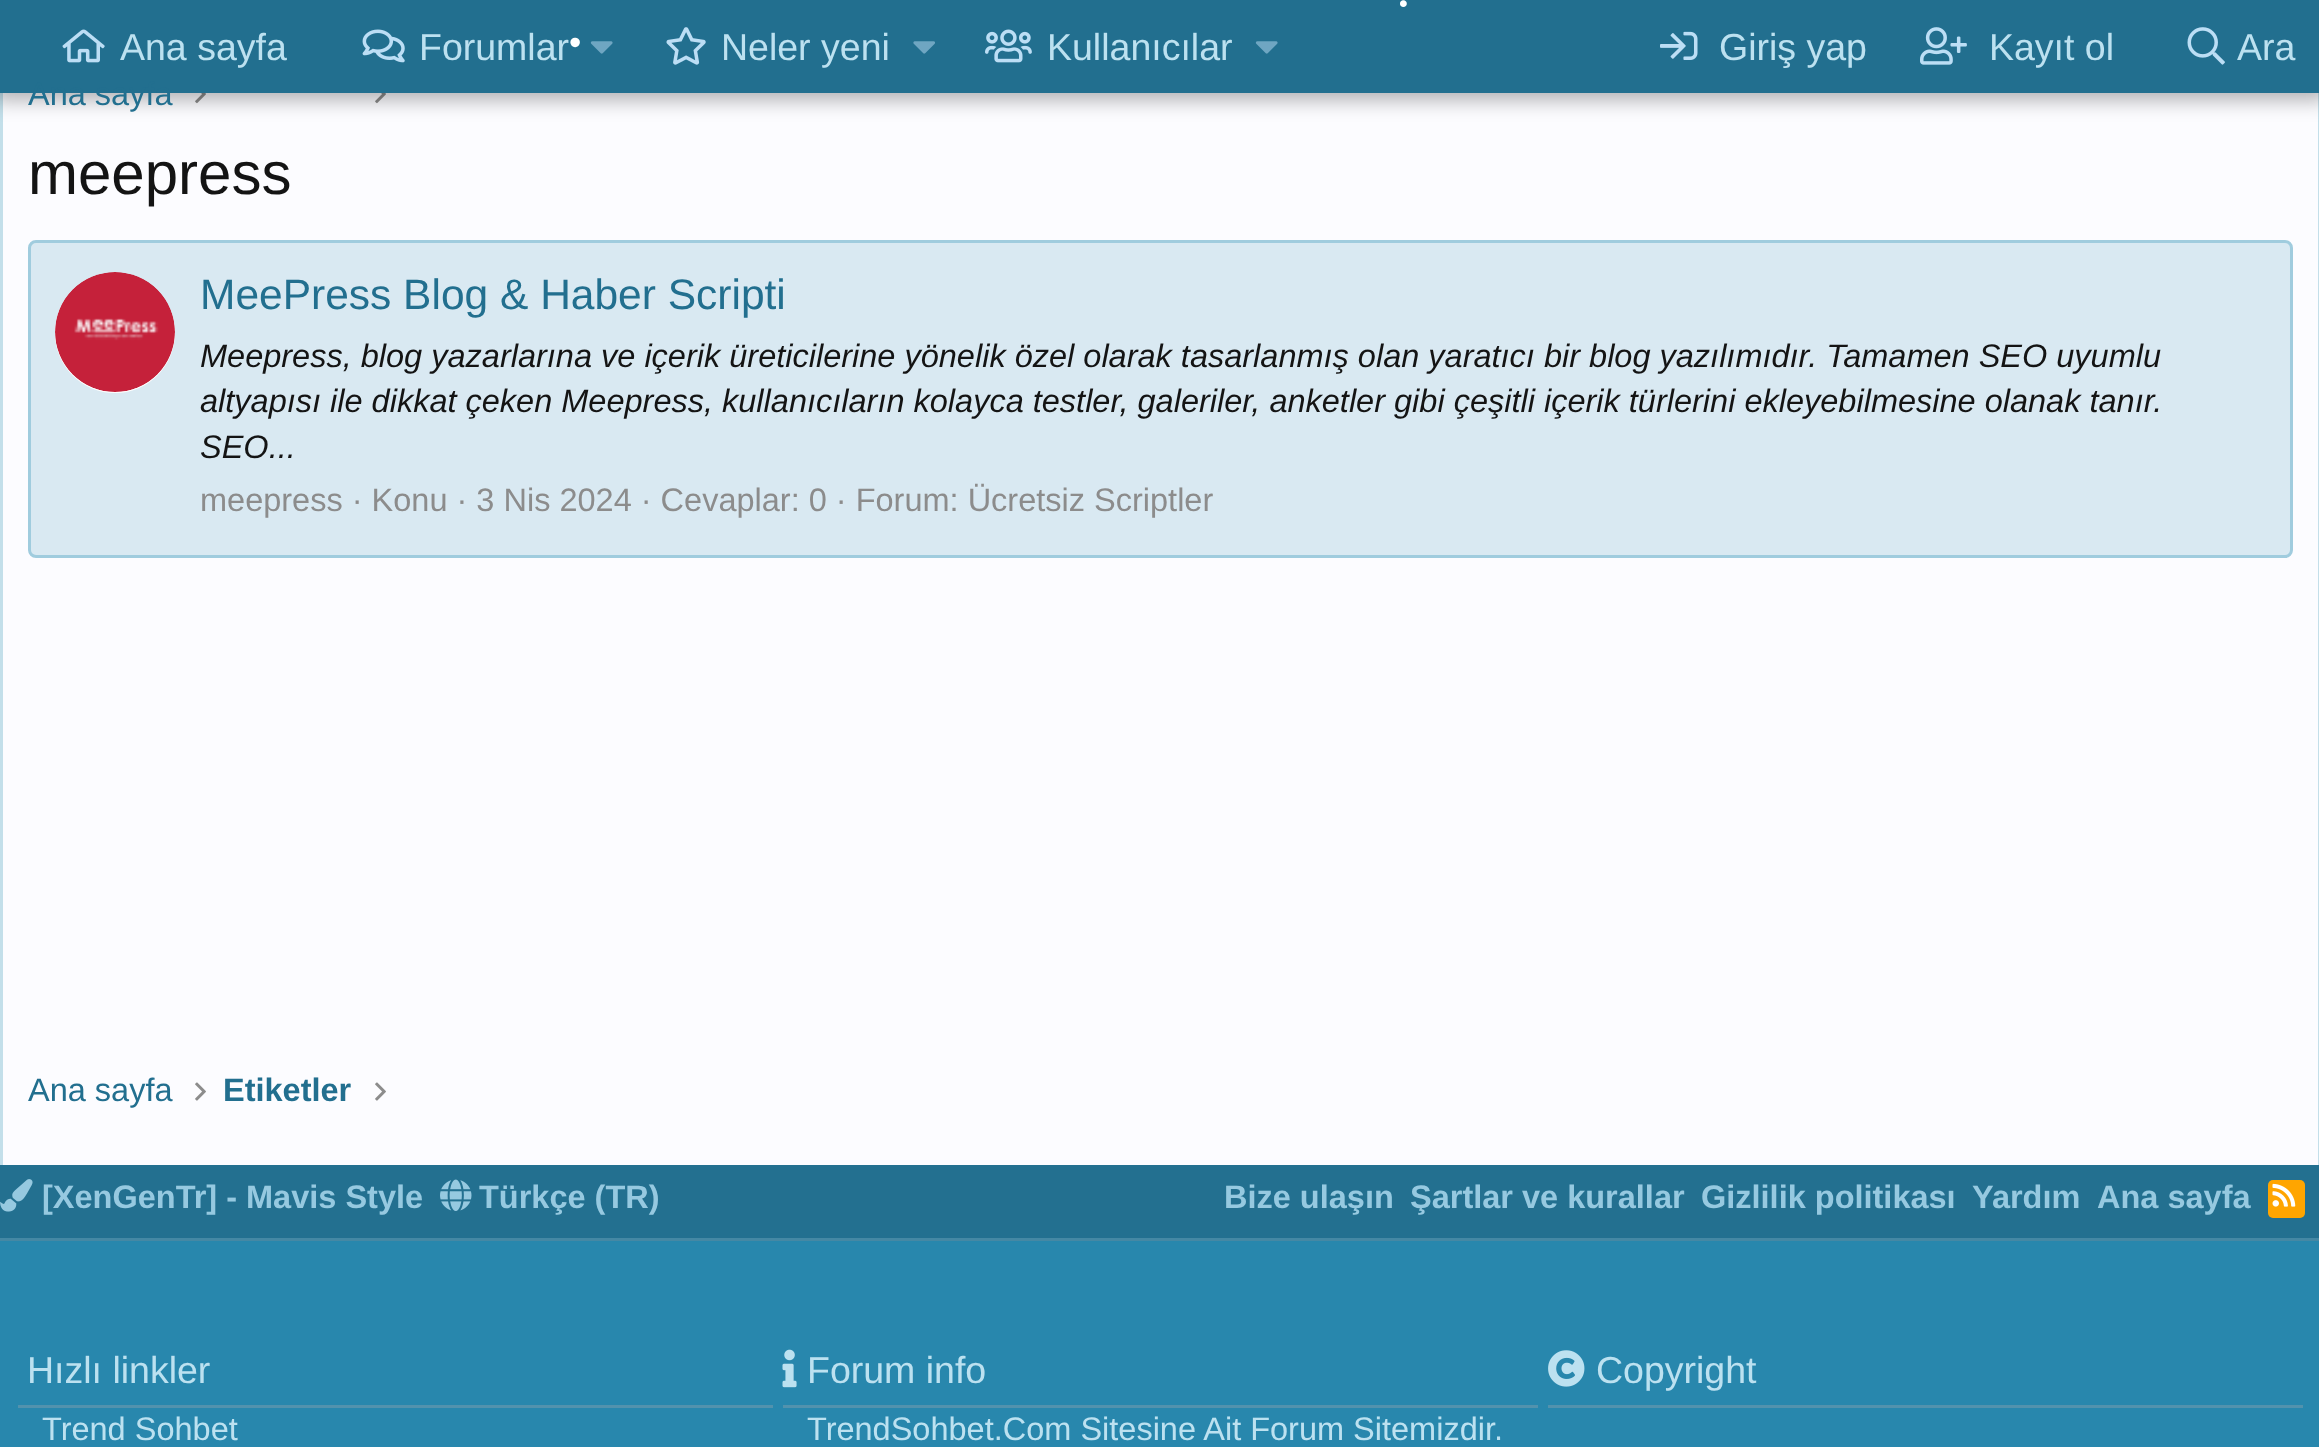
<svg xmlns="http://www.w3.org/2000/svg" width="2319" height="1447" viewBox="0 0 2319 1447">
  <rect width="100%" height="100%" fill="rgb(40,135,173)"/>
  <rect x="3" y="93" width="2315" height="1072" fill="rgb(252,252,255)"/>
  <rect x="2318" y="93" width="1" height="1072" fill="rgb(195,223,234)"/>
  <rect x="0" y="93" width="3" height="1072" fill="rgb(195,223,234)"/>
  <image x="195" y="93" width="11" height="11" href="pic10.png"/>
  <image x="375" y="93" width="11" height="11" href="pic10.png"/>
  <rect x="-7" y="-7" width="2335" height="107" fill="rgba(0,0,0,0.3)" filter="blur(10px)"/>
  <rect x="0" y="0" width="2319" height="93" fill="rgb(34,111,143)"/>
  <text x="1399" y="12" font-family="Liberation Sans" font-size="25" fill="rgb(255,255,255)">•</text>
  <image x="62" y="29" width="43" height="34" href="pic1.png"/>
  <text x="120" y="60" font-family="Liberation Sans" font-size="37.5" fill="rgb(188,225,240)">Ana sayfa</text>
  <image x="362" y="29" width="43" height="34" href="pic2.png"/>
  <text x="419" y="60" font-family="Liberation Sans" font-size="37.5" fill="rgb(188,225,240)">Forumlar</text>
  <image x="590" y="41" width="23" height="13" href="pic3.png"/>
  <image x="666" y="27" width="40" height="38" href="pic4.png"/>
  <text x="721" y="60" font-family="Liberation Sans" font-size="37.5" fill="rgb(188,225,240)">Neler yeni</text>
  <image x="913" y="41" width="22" height="13" href="pic5.png"/>
  <image x="985" y="29" width="47" height="34" href="pic6.png"/>
  <text x="1047" y="60" font-family="Liberation Sans" font-size="37.5" fill="rgb(188,225,240)">Kullanıcılar</text>
  <image x="1255" y="41" width="23" height="13" href="pic3.png"/>
  <image x="1660" y="31" width="38" height="29" href="pic7.png"/>
  <text x="1719" y="60" font-family="Liberation Sans" font-size="37.5" fill="rgb(188,225,240)">Giriş yap</text>
  <image x="1920" y="27" width="47" height="38" href="pic8.png"/>
  <text x="1989" y="60" font-family="Liberation Sans" font-size="37.5" fill="rgb(188,225,240)">Kayıt ol</text>
  <image x="2187" y="27" width="38" height="38" href="pic9.png"/>
  <text x="2237" y="60" font-family="Liberation Sans" font-size="37.5" fill="rgb(188,225,240)">Ara</text>
  <text x="28" y="105" font-family="Liberation Sans" font-size="32.5" fill="rgb(34,111,143)">Ana sayfa</text>
  <text x="28" y="194" font-family="Liberation Sans" font-size="60" fill="rgb(20,20,20)">meepress</text>
  <rect x="29.5" y="241.5" width="2262" height="315" rx="6.5" fill="rgb(217,233,242)" stroke="rgb(160,204,222)" stroke-width="3"/>
  <circle cx="115" cy="333" r="60" fill="rgb(254,254,254)"/>
  <image x="55" y="272" width="120" height="120" href="pic11.png"/>
  <text x="200" y="309" font-family="Liberation Sans" font-size="42.5" fill="rgb(34,111,143)">MeePress Blog &amp; Haber Scripti</text>
  <g font-family="Liberation Sans" font-size="32.5" font-style="italic" fill="rgb(20,20,20)">
    <text>
      <tspan x="200" y="367">Meepress, blog yazarlarına ve içerik üreticilerine yönelik özel olarak tasarlanmış olan yaratıcı bir blog yazılımıdır. Tamamen SEO uyumlu</tspan>
      <tspan x="200" y="412">altyapısı ile dikkat çeken Meepress, kullanıcıların kolayca testler, galeriler, anketler gibi çeşitli içerik türlerini ekleyebilmesine olanak tanır.</tspan>
      <tspan x="200" y="458">SEO...</tspan>
    </text>
  </g>
  <text x="200" y="511" font-family="Liberation Sans" font-size="32.5" fill="rgb(140,140,140)">meepress · Konu · 3 Nis 2024 · Cevaplar: 0 · Forum: Ücretsiz Scriptler</text>
  <text x="28" y="1101" font-family="Liberation Sans" font-size="32.5" fill="rgb(34,111,143)">Ana sayfa</text>
  <image x="195" y="1082" width="11" height="19" href="pic12.png"/>
  <text x="223" y="1101" font-family="Liberation Sans" font-size="32.5" font-weight="bold" fill="rgb(34,111,143)">Etiketler</text>
  <image x="375" y="1082" width="11" height="19" href="pic12.png"/>
  <text x="569" y="54" font-family="Liberation Sans" font-size="35" fill="rgb(255,255,255)">•</text>
  <rect x="0" y="1165" width="2319" height="73" fill="rgb(35,112,144)"/>
  <rect x="0" y="1238" width="2319" height="3" fill="rgb(69,136,164)"/>
  <image x="0" y="1179" width="33" height="33" href="pic13.png"/>
  <text x="42" y="1208" font-family="Liberation Sans" font-size="32.5" font-weight="bold" fill="rgb(150,201,224)">[XenGenTr] - Mavis Style</text>
  <image x="440" y="1179" width="32" height="32" href="pic14.png"/>
  <g font-family="Liberation Sans" font-size="32.5" font-weight="bold" fill="rgb(150,201,224)">
    <text x="479" y="1208">Türkçe (TR)</text>
    <text x="1224" y="1208">Bize ulaşın</text>
    <text x="1410" y="1208">Şartlar ve kurallar</text>
    <text x="1701" y="1208">Gizlilik politikası</text>
    <text x="1972" y="1208">Yardım</text>
    <text x="2097" y="1208">Ana sayfa</text>
  </g>
  <rect x="2268" y="1180" width="37" height="38" rx="5" fill="rgb(255,165,0)"/>
  <image x="2272" y="1183" width="24" height="24" href="pic15.png"/>
  <rect x="18" y="1405" width="755" height="3" fill="rgb(82,146,173)"/>
  <text x="27" y="1383" font-family="Liberation Sans" font-size="37.5" fill="rgb(188,225,240)">Hızlı linkler</text>
  <text x="42" y="1440" font-family="Liberation Sans" font-size="32.5" fill="rgb(188,225,240)">Trend Sohbet</text>
  <rect x="783" y="1405" width="755" height="3" fill="rgb(82,146,173)"/>
  <image x="782" y="1349" width="15" height="39" href="pic16.png"/>
  <text x="807" y="1383" font-family="Liberation Sans" font-size="37.5" fill="rgb(188,225,240)">Forum info</text>
  <text x="807" y="1440" font-family="Liberation Sans" font-size="32.5" fill="rgb(188,225,240)">TrendSohbet.Com Sitesine Ait Forum Sitemizdir.</text>
  <rect x="1548" y="1405" width="755" height="3" fill="rgb(82,146,173)"/>
  <image x="1548" y="1350" width="37" height="37" href="pic17.png"/>
  <text x="1596" y="1383" font-family="Liberation Sans" font-size="37.5" fill="rgb(188,225,240)">Copyright</text>
</svg>
